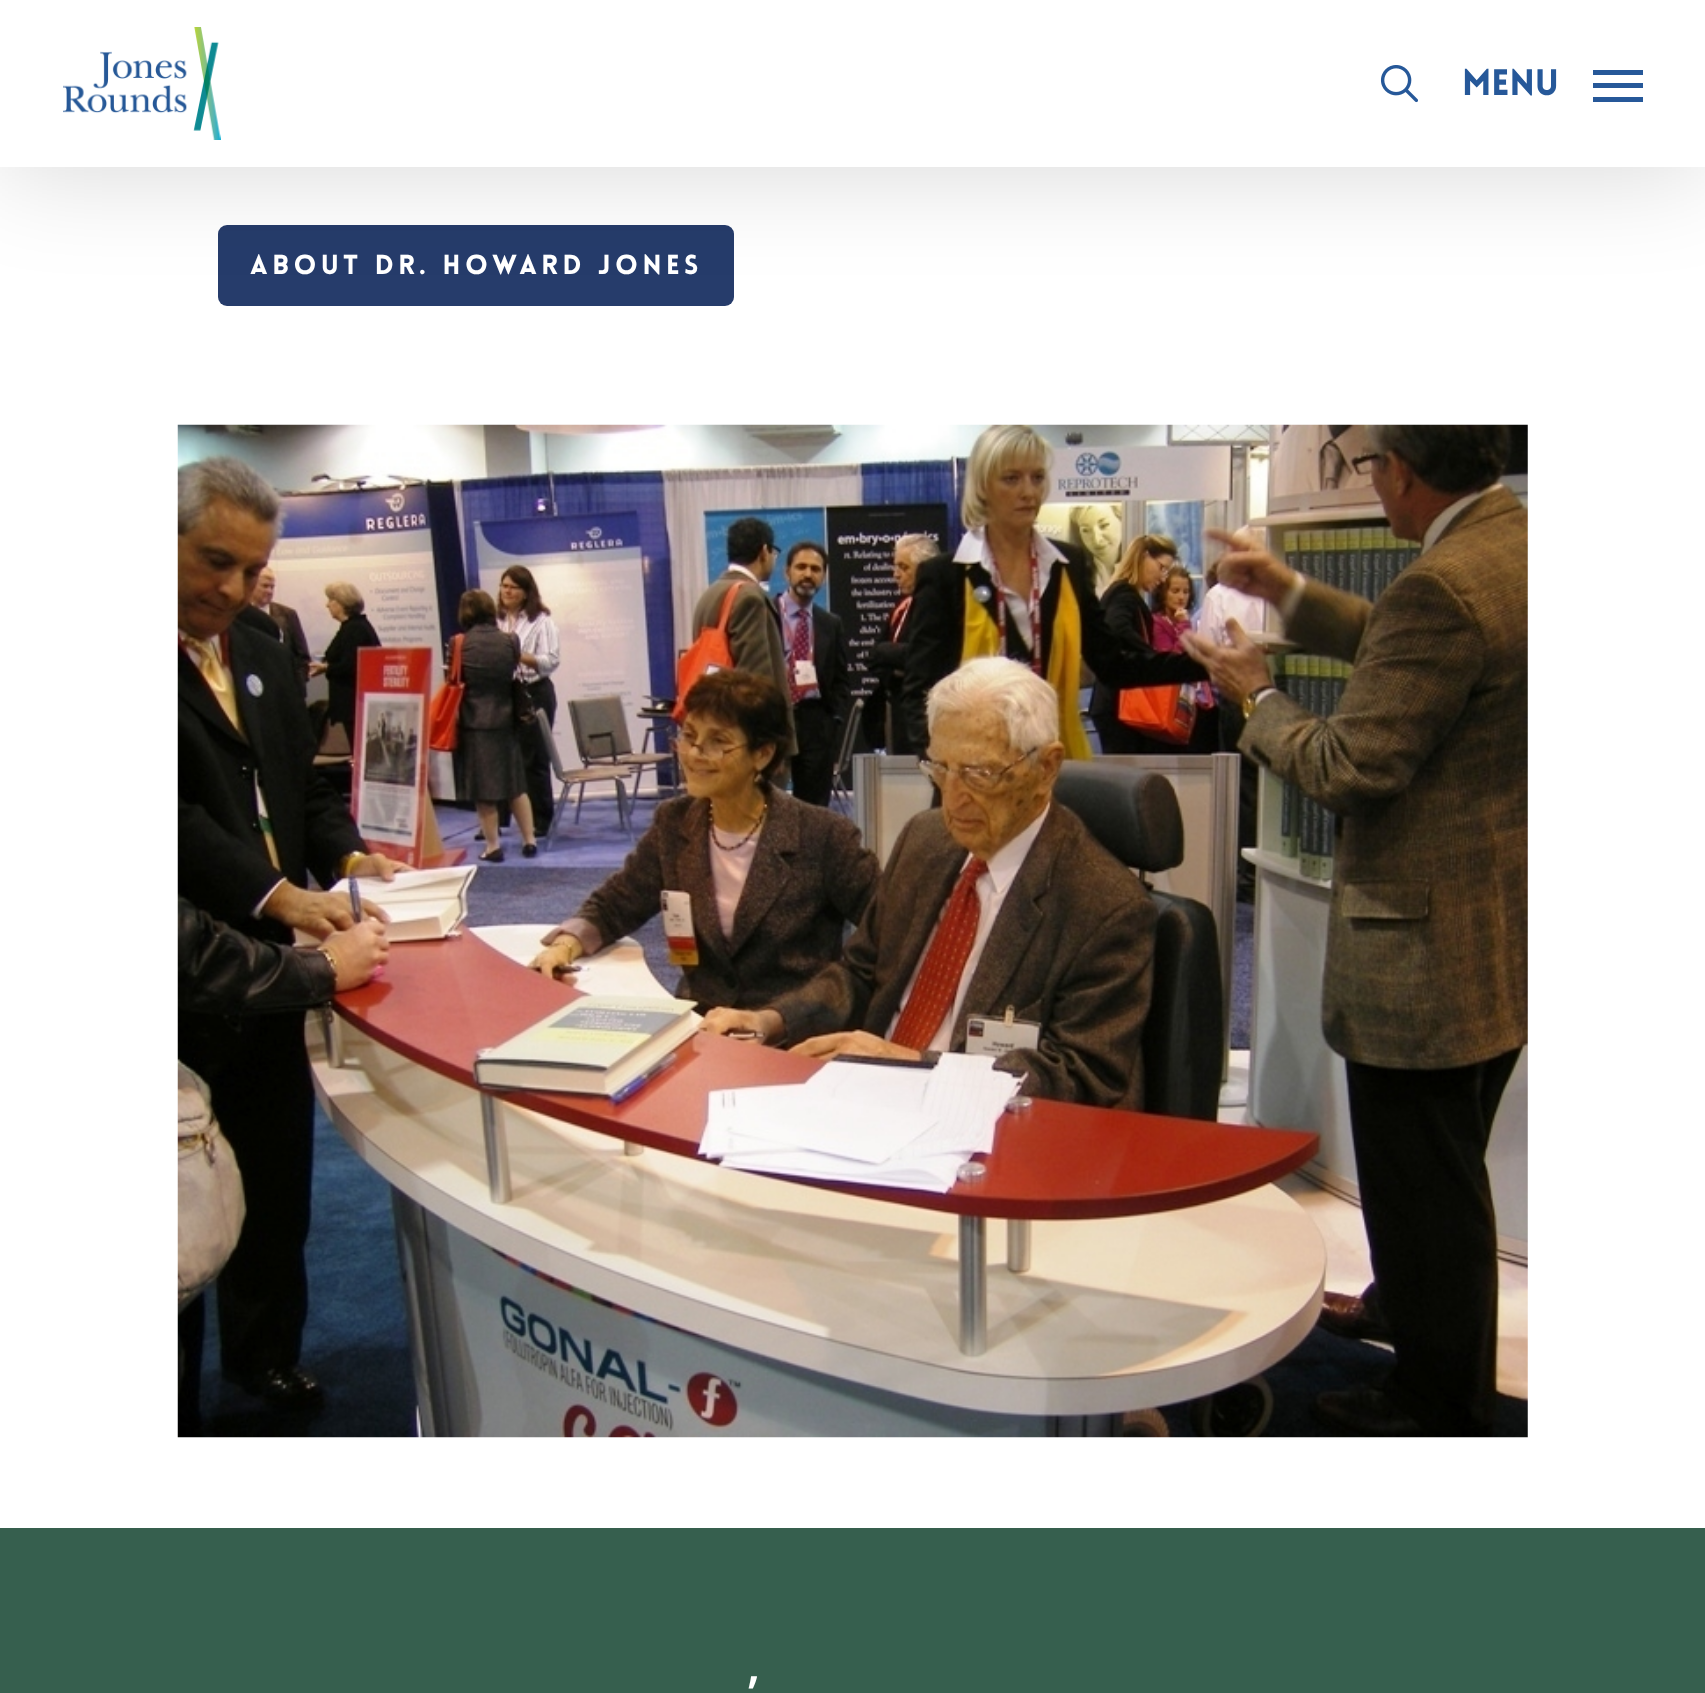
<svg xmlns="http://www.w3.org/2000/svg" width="1705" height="1693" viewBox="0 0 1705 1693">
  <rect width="100%" height="100%" fill="rgb(255,255,255)"/>
  <rect x="218" y="225" width="516" height="81" rx="9" fill="rgb(38,60,107)"/>
  <rect x="0" y="7" width="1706" height="166" fill="rgba(0,0,0,0.15)" filter="blur(50.5px)"/>
  <rect x="0" y="0" width="1705" height="167" fill="rgb(255,255,255)"/>
  <image x="63" y="27" width="158" height="113" href="pic1.png"/>
  <image x="1380" y="65" width="38" height="38" href="pic2.png"/>
  <text x="1462" y="95" font-family="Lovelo" font-size="36" font-weight="900" fill="rgb(38,88,153)">Menu</text>
  <rect x="1593" y="70" width="50" height="5" fill="rgb(38,88,153)"/>
  <rect x="1593" y="97" width="50" height="5" fill="rgb(38,88,153)"/>
  <rect x="1593" y="83" width="50" height="5" fill="rgb(38,88,153)"/>
  <text x="250" y="274" font-family="Lovelo" font-size="27" font-weight="900" letter-spacing="4.5" fill="rgb(255,255,255)">About Dr. Howard Jones</text>
  <image x="177" y="424" width="1351" height="1014" href="pic3.png"/>
  <rect x="0" y="1528" width="1705" height="165" fill="rgb(54,95,78)"/>
  <text x="748" y="1712" font-family="Open Sans" font-size="50" font-weight="600" fill="rgb(255,255,255)">’</text>
</svg>
